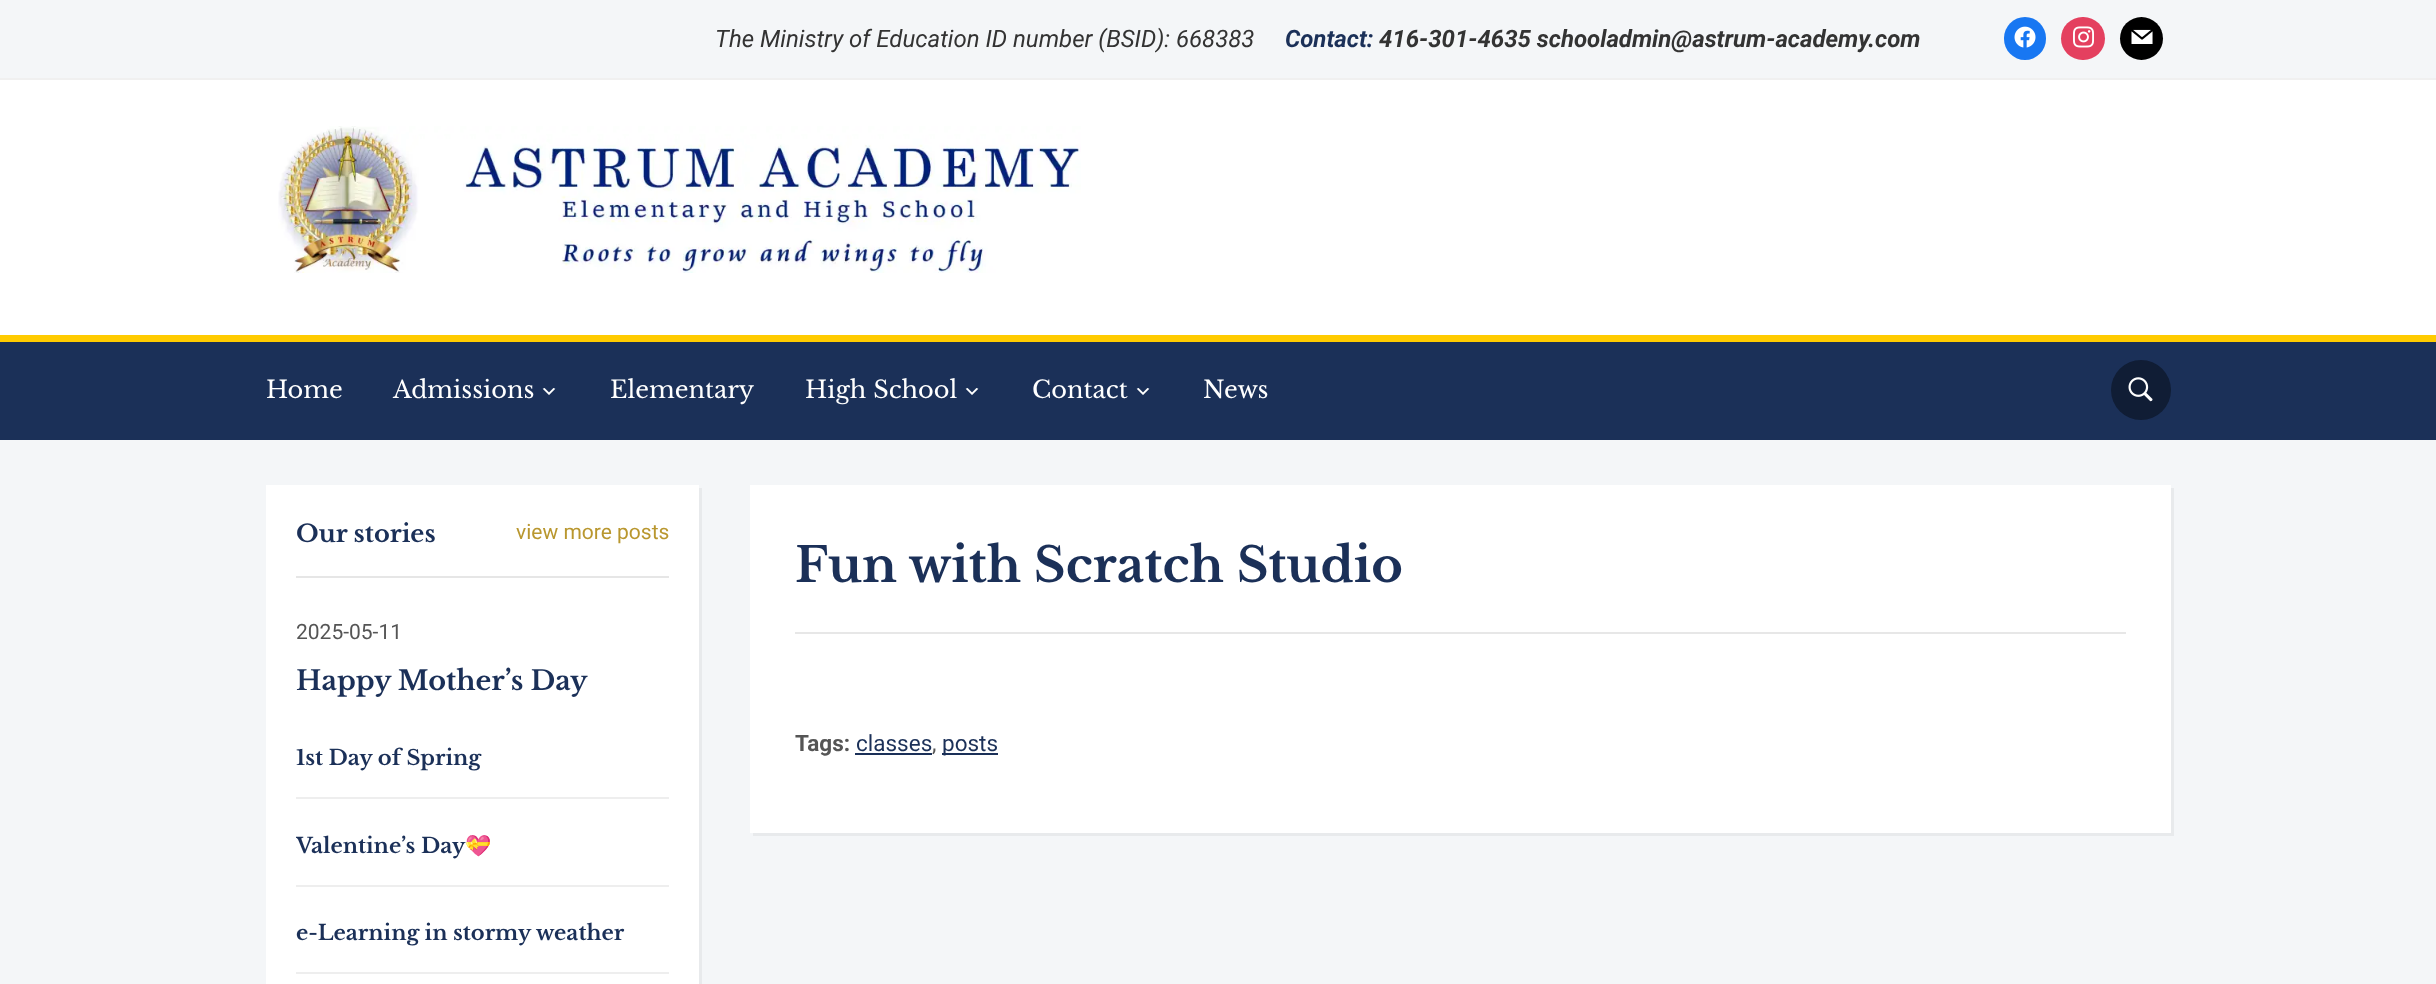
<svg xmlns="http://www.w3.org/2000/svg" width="2436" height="984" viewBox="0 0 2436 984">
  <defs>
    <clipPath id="clip1"><rect x="296" y="828" width="373" height="57"/></clipPath>
  </defs>
  <rect width="100%" height="100%" fill="rgb(244,246,248)"/>
  <rect x="0" y="80" width="2436" height="255" fill="rgb(255,255,255)"/>
  <rect x="0" y="78" width="2436" height="2" fill="rgb(240,240,240)"/>
  <text x="715" y="47" font-family="Roboto" font-size="24" font-style="italic" fill="rgb(51,51,51)">The Ministry of Education ID number (BSID): 668383</text>
  <text x="1285" y="47" font-family="Roboto" font-size="24" font-weight="bold" font-style="italic" fill="rgb(27,48,88)">Contact:</text>
  <text x="1379" y="47" font-family="Roboto" font-size="24" font-weight="bold" font-style="italic" fill="rgb(51,51,51)">416-301-4635 schooladmin@astrum-academy.com</text>
  <rect x="2004" y="17" width="42" height="43" rx="21" fill="rgb(24,119,242)"/>
  <image x="2014" y="26" width="22" height="22" href="pic1.png"/>
  <rect x="2061" y="17" width="44" height="43" rx="21.5" fill="rgb(228,64,95)"/>
  <image x="2073" y="26" width="21" height="22" href="pic2.png"/>
  <circle cx="2141.5" cy="38.5" r="21.5" fill="rgb(0,0,0)"/>
  <image x="2131" y="29" width="22" height="15" href="pic3.png"/>
  <image x="278" y="126" width="803" height="147" href="pic4.png"/>
  <rect x="0" y="342" width="2436" height="98" fill="rgb(27,48,88)"/>
  <rect x="0" y="335" width="2436" height="7" fill="rgb(255,203,0)"/>
  <g font-family="Libre Baskerville" font-size="24" fill="rgb(255,255,255)">
    <text x="266" y="398">Home</text>
    <text x="393" y="398">Admissions</text>
  </g>
  <image x="542" y="388" width="14" height="7" href="pic5.png"/>
  <g font-family="Libre Baskerville" font-size="24" fill="rgb(255,255,255)">
    <text x="610" y="398">Elementary</text>
    <text x="805" y="398">High School</text>
  </g>
  <image x="965" y="388" width="14" height="7" href="pic5.png"/>
  <text x="1032" y="398" font-family="Libre Baskerville" font-size="24" fill="rgb(255,255,255)">Contact</text>
  <image x="1136" y="388" width="14" height="7" href="pic5.png"/>
  <text x="1203" y="398" font-family="Libre Baskerville" font-size="24" fill="rgb(255,255,255)">News</text>
  <circle cx="2141" cy="390" r="30" fill="rgb(16,29,53)"/>
  <image x="2128" y="377" width="25" height="25" href="pic6.png"/>
  <path d="M269 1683V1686H702V488H699V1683Z" fill="rgb(232,234,236)"/>
  <rect x="266" y="485" width="433" height="499" fill="rgb(255,255,255)"/>
  <rect x="296" y="576" width="373" height="2" fill="rgb(230,230,230)"/>
  <text x="296" y="542" font-family="Libre Baskerville" font-size="24" font-weight="bold" fill="rgb(27,48,88)">Our stories</text>
  <text x="516" y="539" font-family="Roboto" font-size="21" fill="rgb(185,151,47)">view more posts</text>
  <text x="296" y="639" font-family="Roboto" font-size="21" fill="rgb(85,85,85)">2025-05-11</text>
  <text x="296" y="690" font-family="Libre Baskerville" font-size="27" font-weight="bold" fill="rgb(27,48,88)">Happy Mother’s Day</text>
  <rect x="296" y="797" width="373" height="2" fill="rgb(238,238,238)"/>
  <text x="296" y="765" font-family="Libre Baskerville" font-size="21" font-weight="bold" fill="rgb(27,48,88)">1st Day of Spring</text>
  <rect x="296" y="885" width="373" height="2" fill="rgb(238,238,238)"/>
  <g clip-path="url(#clip1)">
    <text x="296" y="853" font-family="Libre Baskerville" font-size="21" font-weight="bold" fill="rgb(27,48,88)">Valentine’s Day</text>
  </g>
  <text x="465" y="853" font-family="Noto Color Emoji" font-size="21" font-weight="bold" fill="rgb(27,48,88)">💝</text>
  <rect x="296" y="972" width="373" height="2" fill="rgb(238,238,238)"/>
  <text x="296" y="940" font-family="Libre Baskerville" font-size="21" font-weight="bold" fill="rgb(27,48,88)">e-Learning in stormy weather</text>
  <path d="M753 832V836H2174V488H2170V832Z" fill="rgb(232,234,236)"/>
  <rect x="750" y="485" width="1421" height="348" fill="rgb(255,255,255)"/>
  <text x="795" y="582" font-family="Libre Baskerville" font-size="48" font-weight="bold" fill="rgb(27,48,88)">Fun with Scratch Studio</text>
  <rect x="795" y="632" width="1331" height="2" fill="rgb(231,231,231)"/>
  <text x="795" y="751" font-family="Roboto" font-size="22.5" font-weight="bold" fill="rgb(85,85,85)">Tags:</text>
  <text x="856" y="751" font-family="Roboto" font-size="22.5" fill="rgb(27,48,88)">classes</text>
  <rect x="855" y="753" width="77" height="2" fill="rgb(27,48,88)"/>
  <text x="932" y="751" font-family="Roboto" font-size="22.5" fill="rgb(85,85,85)">,</text>
  <rect x="942" y="753" width="56" height="2" fill="rgb(27,48,88)"/>
  <text x="942" y="751" font-family="Roboto" font-size="22.5" fill="rgb(27,48,88)">posts</text>
</svg>
